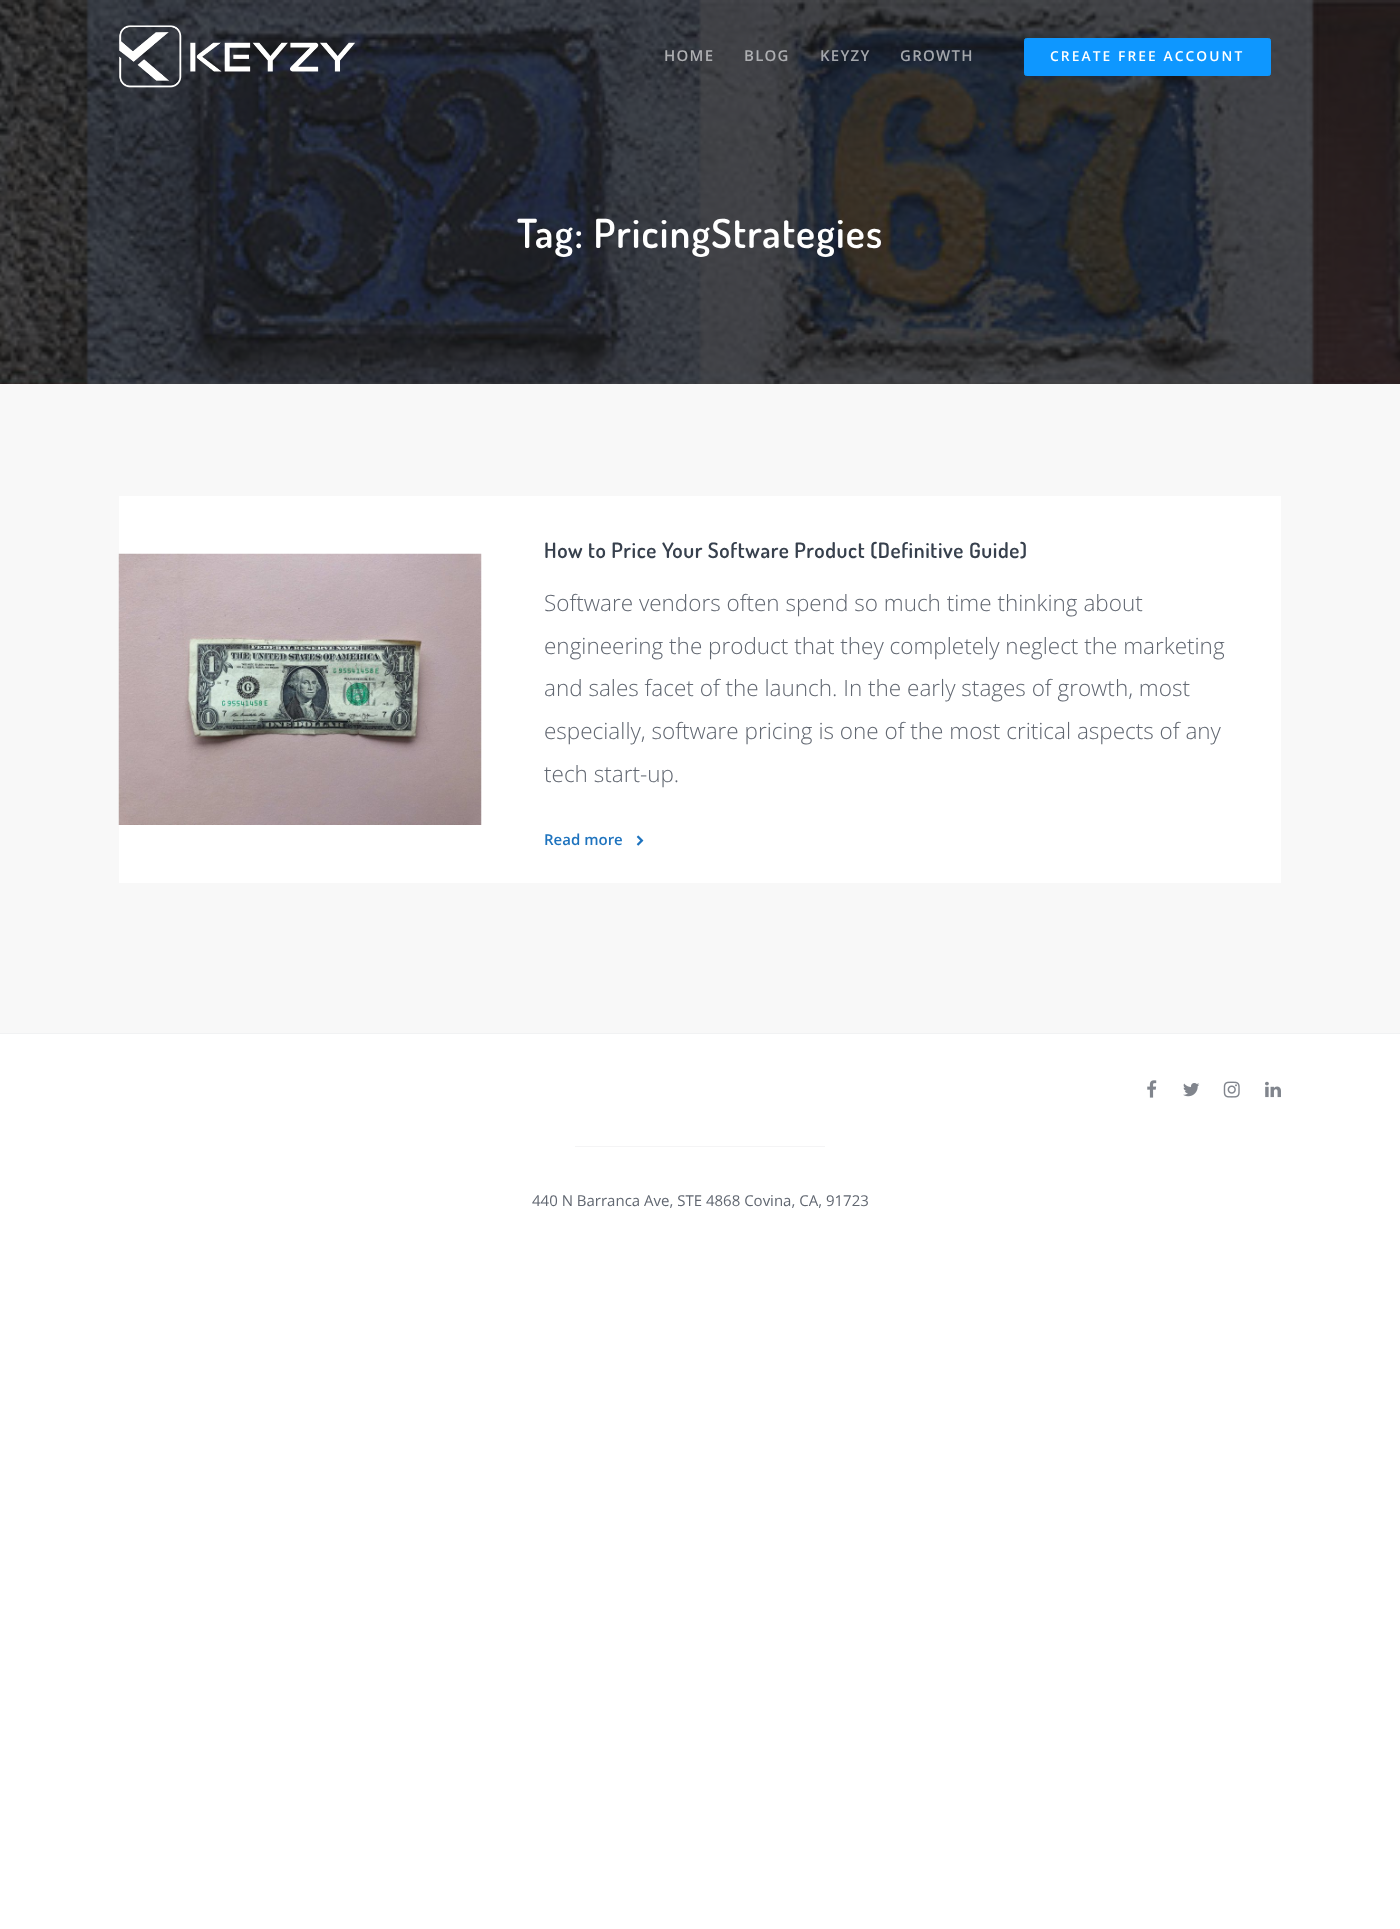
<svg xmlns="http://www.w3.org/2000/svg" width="1400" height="1929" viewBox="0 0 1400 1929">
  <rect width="100%" height="100%" fill="rgb(255,255,255)"/>
  <image x="0" y="0" width="1400" height="384" href="pic2.png"/>
  <image x="119" y="25" width="236" height="63" href="pic1.png"/>
  <g font-family="Open Sans" font-size="15" font-weight="600" letter-spacing="1.25" fill="rgb(174,175,178)">
    <text x="664" y="61">HOME</text>
    <text x="744" y="61">BLOG</text>
  </g>
  <g font-family="Open Sans" font-size="15" font-weight="600" letter-spacing="1.25" fill="rgb(164,167,172)">
    <text x="820" y="61">KEYZY</text>
    <text x="900" y="61">GROWTH</text>
  </g>
  <rect x="1024.5" y="38.5" width="246" height="37" rx="2" fill="rgb(14,151,255)" stroke="rgb(14,151,255)"/>
  <text x="1050" y="61" font-family="Open Sans" font-size="13.75" font-weight="600" letter-spacing="2.1" fill="rgb(255,255,255)">CREATE FREE ACCOUNT</text>
  <text x="517" y="248" font-family="Dosis" font-size="40" font-weight="600" letter-spacing="1.25" fill="rgb(255,255,255)">Tag: PricingStrategies</text>
  <rect x="0" y="384" width="1400" height="649" fill="rgb(248,248,248)"/>
  <rect x="119" y="496" width="1162" height="387" fill="rgb(255,255,255)"/>
  <image x="118" y="553" width="364" height="272" href="pic3.png"/>
  <text x="544" y="558" font-family="Dosis" font-size="21.25" font-weight="600" letter-spacing="0.62" fill="rgb(55,64,77)">How to Price Your Software Product (Definitive Guide)</text>
  <g font-family="Open Sans" font-size="22.5" font-weight="300" fill="rgb(97,103,113)">
    <text>
      <tspan x="544" y="611">Software vendors often spend so much time thinking about</tspan>
      <tspan x="544" y="654">engineering the product that they completely neglect the marketing</tspan>
      <tspan x="544" y="696">and sales facet of the launch. In the early stages of growth, most</tspan>
      <tspan x="544" y="739">especially, software pricing is one of the most critical aspects of any</tspan>
      <tspan x="544" y="782">tech start-up.</tspan>
    </text>
  </g>
  <text x="544" y="845" font-family="Open Sans" font-size="15" font-weight="600" fill="rgb(30,115,190)">Read more</text>
  <image x="636" y="835" width="8" height="11" href="pic4.png"/>
  <rect x="0" y="1033" width="1400" height="1" fill="rgb(241,242,243)"/>
  <image x="1147" y="1080" width="10" height="18" href="pic5.png"/>
  <image x="1183" y="1083" width="17" height="14" href="pic6.png"/>
  <image x="1223" y="1081" width="17" height="17" href="pic7.png"/>
  <image x="1265" y="1081" width="16" height="17" href="pic8.png"/>
  <rect x="575" y="1146" width="250" height="1" fill="rgb(244,244,245)"/>
  <text x="532" y="1206" font-family="Open Sans" font-size="15" fill="rgb(97,103,113)">440 N Barranca Ave, STE 4868 Covina, CA, 91723</text>
</svg>
